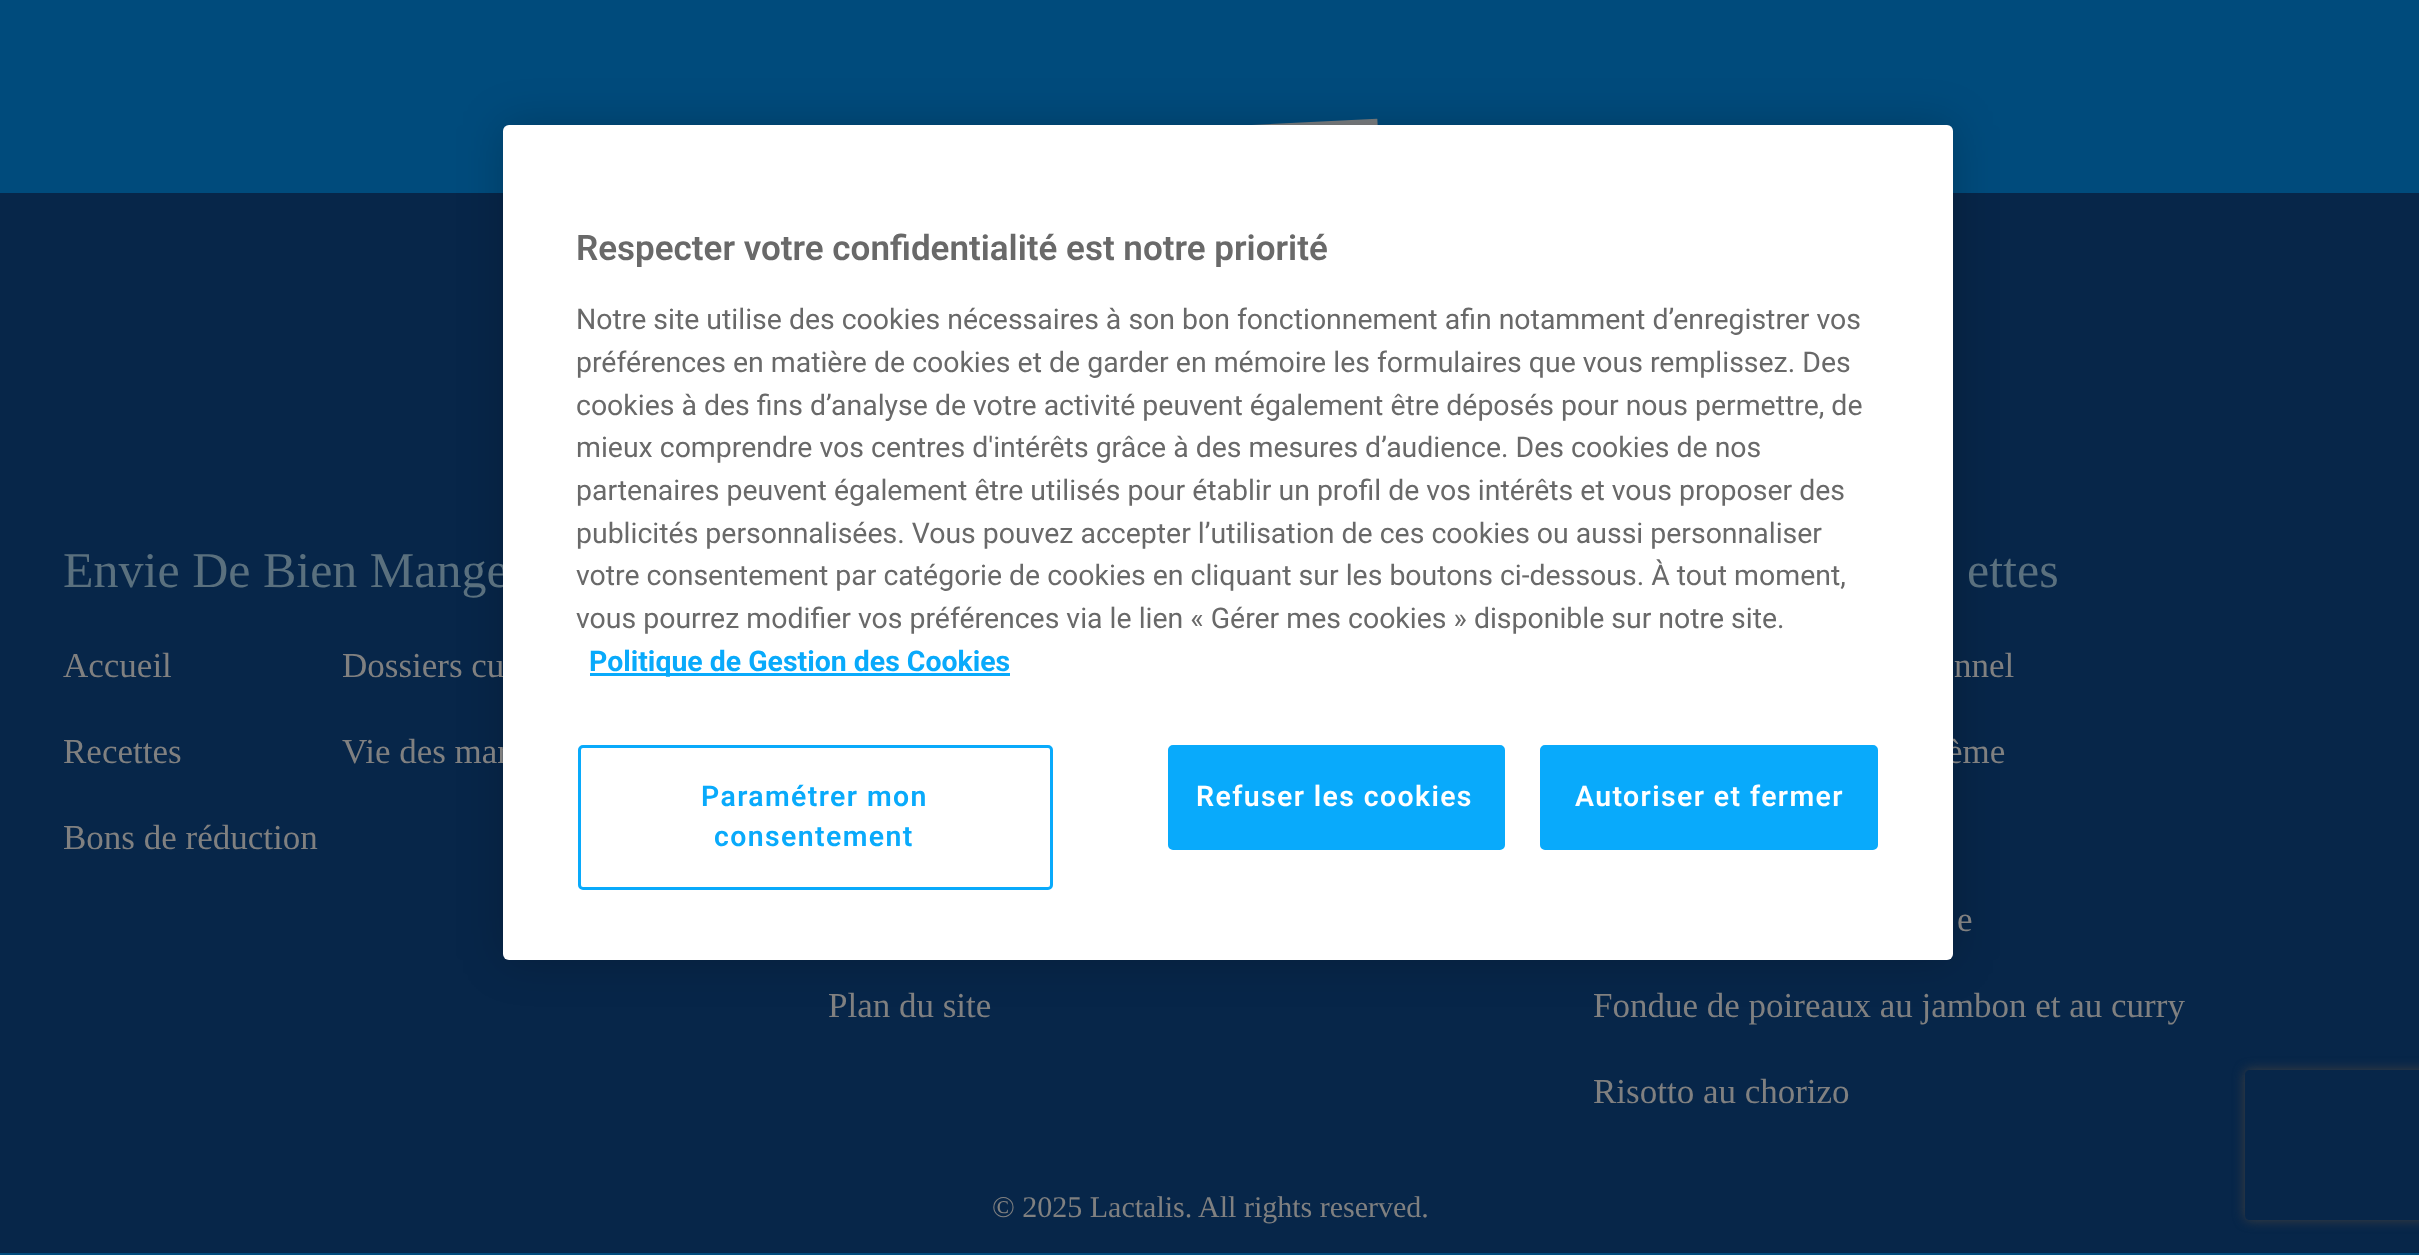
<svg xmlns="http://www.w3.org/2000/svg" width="2419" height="1255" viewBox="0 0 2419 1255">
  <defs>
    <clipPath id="clip1"><path d="M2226 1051H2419V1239H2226ZM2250 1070H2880C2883 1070 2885 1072 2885 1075V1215C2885 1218 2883 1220 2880 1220H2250C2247 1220 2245 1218 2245 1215V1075C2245 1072 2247 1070 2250 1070Z" clip-rule="evenodd"/></clipPath>
  </defs>
  <rect width="100%" height="100%" fill="rgb(0,75,124)"/>
  <rect x="0" y="193" width="2419" height="1060" fill="rgb(7,38,73)"/>
  <image x="1252" y="118" width="126" height="7" href="pic1.png"/>
  <rect x="503" y="125" width="1450" height="835" rx="6" fill="rgba(0,0,0,0.2)" filter="blur(22.5px)"/>
  <text x="63" y="587" font-family="Liberation Serif" font-size="50" fill="rgb(90,112,126)">Envie De Bien Mange</text>
  <g font-family="Liberation Serif" font-size="35" fill="rgb(128,128,128)">
    <text x="342" y="677">Dossiers cu</text>
    <text x="342" y="763">Vie des mar</text>
    <text x="1947" y="763">ème</text>
  </g>
  <rect x="503" y="125" width="1450" height="835" rx="6" fill="rgb(255,255,255)"/>
  <text x="576" y="260" font-family="Roboto" font-size="35" font-weight="600" fill="rgb(105,105,105)">Respecter votre confidentialité est notre priorité</text>
  <g font-family="Roboto" font-size="28.45" fill="rgb(105,105,105)">
    <text>
      <tspan x="576" y="329">Notre site utilise des cookies nécessaires à son bon fonctionnement afin notamment d’enregistrer vos</tspan>
      <tspan x="576" y="372">préférences en matière de cookies et de garder en mémoire les formulaires que vous remplissez. Des</tspan>
      <tspan x="576" y="415">cookies à des fins d’analyse de votre activité peuvent également être déposés pour nous permettre, de</tspan>
      <tspan x="576" y="457">mieux comprendre vos centres d'intérêts grâce à des mesures d’audience. Des cookies de nos</tspan>
      <tspan x="576" y="500">partenaires peuvent également être utilisés pour établir un profil de vos intérêts et vous proposer des</tspan>
      <tspan x="576" y="543">publicités personnalisées. Vous pouvez accepter l’utilisation de ces cookies ou aussi personnaliser</tspan>
      <tspan x="576" y="585">votre consentement par catégorie de cookies en cliquant sur les boutons ci-dessous. À tout moment,</tspan>
      <tspan x="576" y="628">vous pourrez modifier vos préférences via le lien « Gérer mes cookies » disponible sur notre site.</tspan>
    </text>
  </g>
  <rect x="590" y="673" width="420" height="3" fill="rgb(9,170,251)"/>
  <text x="589" y="671" font-family="Roboto" font-size="28.45" font-weight="bold" fill="rgb(9,170,251)">Politique de Gestion des Cookies</text>
  <rect x="579.5" y="746.5" width="472" height="142" rx="3.5" fill="none" stroke="rgb(9,170,251)" stroke-width="3"/>
  <g font-family="Roboto" font-size="28.45" font-weight="600" letter-spacing="1.4" fill="rgb(9,170,251)">
    <text x="701" y="806">Paramétrer mon</text>
    <text x="714" y="846">consentement</text>
  </g>
  <rect x="1169.5" y="746.5" width="334" height="102" rx="3.5" fill="rgb(9,170,251)" stroke="rgb(9,170,251)" stroke-width="3"/>
  <text x="1196" y="806" font-family="Roboto" font-size="28.45" font-weight="600" letter-spacing="1.4" fill="rgb(255,255,255)">Refuser les cookies</text>
  <rect x="1541.5" y="746.5" width="335" height="102" rx="3.5" fill="rgb(9,170,251)" stroke="rgb(9,170,251)" stroke-width="3"/>
  <text x="1575" y="806" font-family="Roboto" font-size="28.45" font-weight="600" letter-spacing="1.4" fill="rgb(255,255,255)">Autoriser et fermer</text>
  <g font-family="Liberation Serif" font-size="35" fill="rgb(128,128,128)">
    <text x="63" y="677">Accueil</text>
    <text x="63" y="763">Recettes</text>
    <text x="63" y="849">Bons de réduction</text>
    <text x="828" y="1017">Plan du site</text>
  </g>
  <text x="1967" y="587" font-family="Liberation Serif" font-size="50" fill="rgb(90,112,126)">ettes</text>
  <g font-family="Liberation Serif" font-size="35" fill="rgb(128,128,128)">
    <text x="1954" y="677">nnel</text>
    <text x="1957" y="931">e</text>
    <text x="1593" y="1017">Fondue de poireaux au jambon et au curry</text>
    <text x="1593" y="1103">Risotto au chorizo</text>
  </g>
  <text x="992" y="1217" font-family="Liberation Serif" font-size="30" fill="rgb(128,128,128)">© 2025 Lactalis. All rights reserved.</text>
  <g clip-path="url(#clip1)">
    <rect x="2245" y="1070" width="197" height="150" rx="5" fill="rgb(64,64,64)" filter="blur(6px)"/>
  </g>
</svg>
